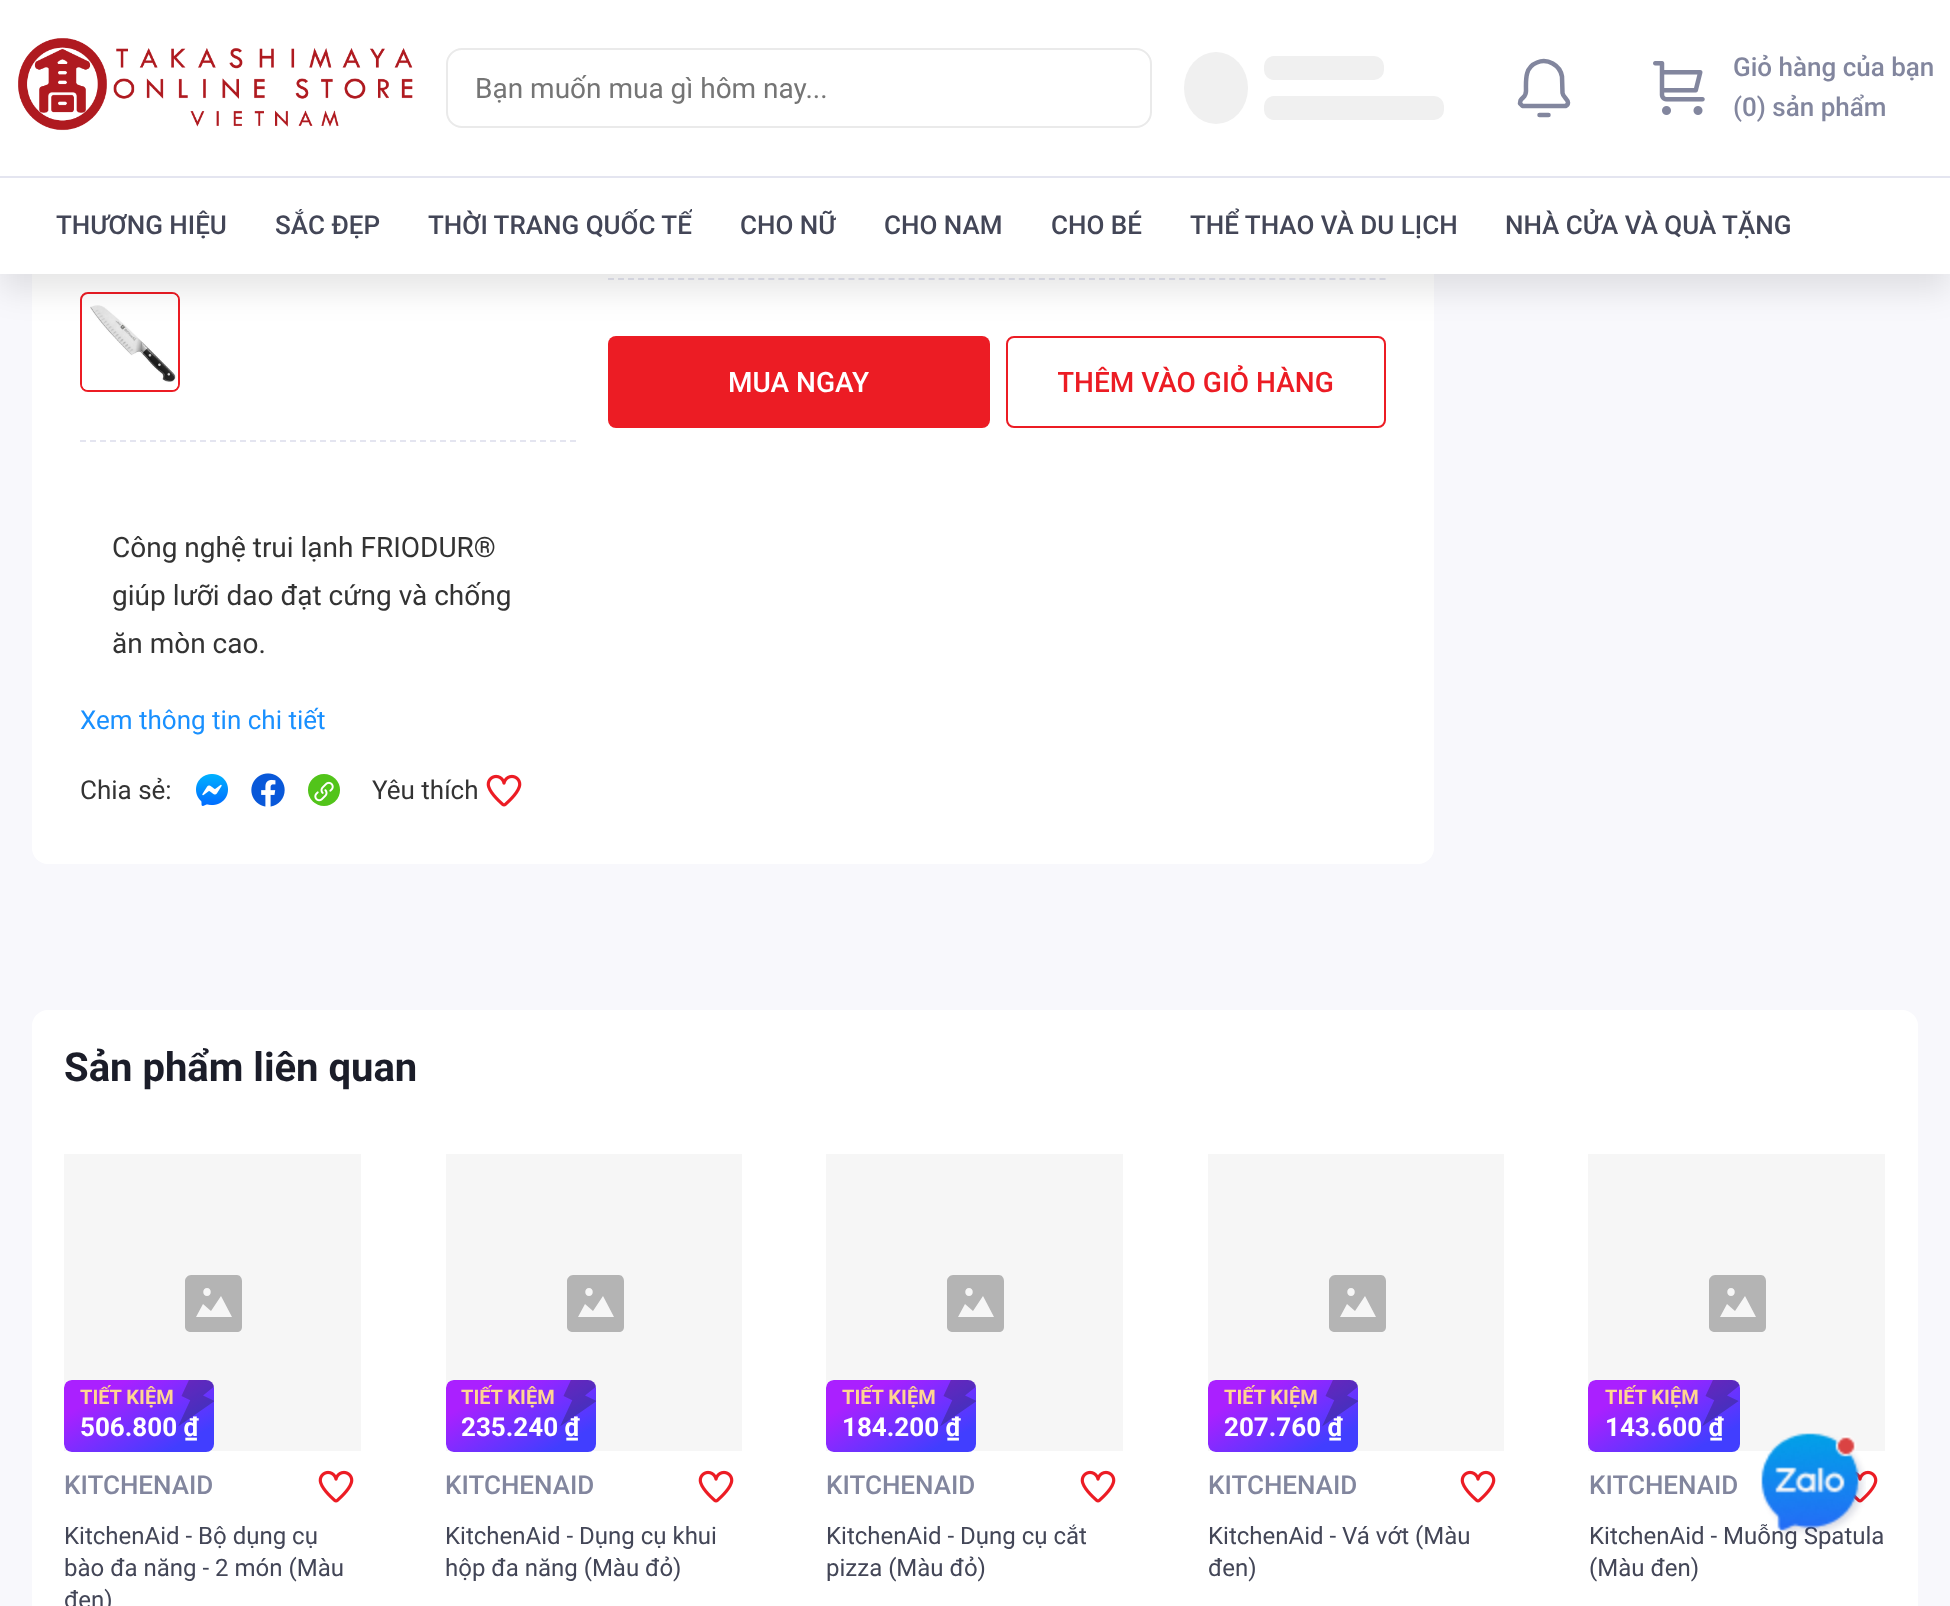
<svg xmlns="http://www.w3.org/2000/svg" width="1950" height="1606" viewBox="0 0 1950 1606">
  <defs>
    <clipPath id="clip1"><rect x="428" y="206" width="264" height="40"/></clipPath>
    <clipPath id="clip2"><rect x="740" y="206" width="96" height="40"/></clipPath>
    <clipPath id="clip3"><rect x="1058" y="358" width="276" height="48"/></clipPath>
  </defs>
  <rect width="100%" height="100%" fill="rgb(248,248,252)"/>
  <rect x="32" y="-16" width="1402" height="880" rx="16" fill="rgb(255,255,255)"/>
  <path d="M608 279H1386" fill="none" stroke="rgb(228,229,240)" stroke-width="2" stroke-dasharray="6 4.02"/>
  <rect x="608" y="336" width="382" height="92" rx="8" fill="rgb(236,28,36)"/>
  <rect x="1007" y="337" width="378" height="90" rx="7" fill="none" stroke="rgb(236,28,36)" stroke-width="2"/>
  <rect x="81" y="293" width="98" height="98" rx="7" fill="none" stroke="rgb(236,28,36)" stroke-width="2"/>
  <image x="82" y="294" width="96" height="96" href="pic3.png"/>
  <rect x="0" y="16" width="1950" height="274" fill="rgba(0,0,0,0.1)" filter="blur(16px)"/>
  <rect x="0" y="0" width="1950" height="274" fill="rgb(255,255,255)"/>
  <image x="18" y="38" width="395" height="93" href="pic1.png"/>
  <rect x="447" y="49" width="704" height="78" rx="15" fill="none" stroke="rgb(234,234,234)" stroke-width="2"/>
  <text x="475" y="98" font-family="Roboto" font-size="28" fill="rgb(117,117,117)">Bạn muốn mua gì hôm nay...</text>
  <ellipse cx="1216" cy="88" rx="32" ry="36" fill="rgb(240,240,240)"/>
  <rect x="1264" y="56" width="120" height="24" rx="10" fill="rgb(240,240,240)"/>
  <rect x="1264" y="96" width="180" height="24" rx="10" fill="rgb(240,240,240)"/>
  <path d="M1526 91C1526 80 1524.5 67.5 1537 62.5C1547.5 58 1560 65 1562 76.5L1562.5 93C1563 97 1568 99.5 1568 102.5C1568 104 1567 105.5 1565.5 106H1522.5L1520 103.5L1520.5 100.5C1523 96.5 1526 97 1526 91ZM1539.5 115H1548.5" fill="none" stroke="rgb(130,134,158)" stroke-width="4.5" stroke-linecap="round" stroke-linejoin="round"/>
  <image x="1653" y="61" width="52" height="54" href="pic2.png"/>
  <g font-family="Roboto" font-size="26" font-weight="500" fill="rgb(130,134,158)">
    <text>
      <tspan x="1733" y="76">Giỏ hàng của bạn</tspan>
      <tspan x="1733" y="116">(0) sản phẩm</tspan>
    </text>
  </g>
  <rect x="0" y="176" width="1950" height="2" fill="rgb(228,229,240)"/>
  <g font-family="Roboto" font-size="26" font-weight="500" fill="rgb(67,70,87)">
    <text x="56" y="234">THƯƠNG HIỆU</text>
    <text x="275" y="234">SẮC ĐẸP</text>
  </g>
  <g clip-path="url(#clip1)">
    <text x="428" y="234" font-family="Roboto" font-size="26" font-weight="500" fill="rgb(67,70,87)">THỜI TRANG QUỐC TẾ</text>
  </g>
  <g clip-path="url(#clip2)">
    <text x="740" y="234" font-family="Roboto" font-size="26" font-weight="500" fill="rgb(67,70,87)">CHO NỮ</text>
  </g>
  <g font-family="Roboto" font-size="26" font-weight="500" fill="rgb(67,70,87)">
    <text x="884" y="234">CHO NAM</text>
    <text x="1051" y="234">CHO BÉ</text>
    <text x="1190" y="234">THỂ THAO VÀ DU LỊCH</text>
    <text x="1505" y="234">NHÀ CỬA VÀ QUÀ TẶNG</text>
  </g>
  <text x="728" y="392" font-family="Roboto" font-size="28" font-weight="500" fill="rgb(255,255,255)">MUA NGAY</text>
  <g clip-path="url(#clip3)">
    <text x="1057" y="392" font-family="Roboto" font-size="28" font-weight="500" fill="rgb(236,28,36)">THÊM VÀO GIỎ HÀNG</text>
  </g>
  <path d="M80 441H576" fill="none" stroke="rgb(228,229,240)" stroke-width="2" stroke-dasharray="6 4"/>
  <g font-family="Roboto" font-size="28" fill="rgb(51,51,51)">
    <text>
      <tspan x="112" y="557">Công nghệ trui lạnh FRIODUR®</tspan>
      <tspan x="112" y="605">giúp lưỡi dao đạt cứng và chống</tspan>
      <tspan x="112" y="653">ăn mòn cao.</tspan>
    </text>
  </g>
  <text x="80" y="729" font-family="Roboto" font-size="26" fill="rgb(25,144,255)">Xem thông tin chi tiết</text>
  <text x="80" y="799" font-family="Roboto" font-size="26" fill="rgb(51,51,51)">Chia sẻ:</text>
  <image x="196" y="774" width="32" height="32" href="pic4.png"/>
  <image x="251" y="773" width="34" height="34" href="pic5.png"/>
  <circle cx="324" cy="790" r="16" fill="rgb(82,196,26)"/>
  <image x="314" y="781" width="20" height="21" href="pic6.png"/>
  <text x="372" y="799" font-family="Roboto" font-size="26" fill="rgb(51,51,51)">Yêu thích</text>
  <image x="486" y="774" width="36" height="33" href="pic7.png"/>
  <rect x="32" y="1010" width="1886" height="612" rx="16" fill="rgb(255,255,255)"/>
  <text x="64" y="1081" font-family="Roboto" font-size="40" font-weight="bold" fill="rgb(27,29,41)">Sản phẩm liên quan</text>
  <rect x="64" y="1154" width="297" height="297" fill="rgb(246,246,246)"/>
  <path d="M237 1275C240 1275 242 1278 242 1281V1327C242 1330 240 1332 237 1332H191C188 1332 185 1330 185 1327V1281C185 1278 188 1275 191 1275ZM221 1296L211 1311L203 1304L196 1317H232ZM207 1288C202 1288 202 1296 207 1296C212 1296 212 1288 207 1288Z" fill="rgb(180,180,180)" fill-rule="evenodd"/>
  <image x="64" y="1380" width="150" height="72" href="pic8.png"/>
  <text x="80" y="1404" font-family="Roboto" font-size="20" font-weight="bold" fill="rgb(255,213,145)">TIẾT KIỆM</text>
  <text x="80" y="1436" font-family="Roboto" font-size="26" font-weight="bold" fill="rgb(255,255,255)">506.800 ₫</text>
  <text x="64" y="1494" font-family="Roboto" font-size="26" font-weight="500" fill="rgb(130,134,158)">KITCHENAID</text>
  <image x="318" y="1470" width="36" height="33" href="pic7.png"/>
  <g font-family="Roboto" font-size="24" fill="rgb(67,70,87)">
    <text>
      <tspan x="64" y="1544">KitchenAid - Bộ dụng cụ</tspan>
      <tspan x="64" y="1576">bào đa năng - 2 món (Màu</tspan>
      <tspan x="64" y="1608">đen)</tspan>
    </text>
  </g>
  <rect x="446" y="1154" width="296" height="297" fill="rgb(246,246,246)"/>
  <path d="M619 1275C622 1275 624 1278 624 1281V1327C624 1330 622 1332 619 1332H573C570 1332 567 1330 567 1327V1281C567 1278 570 1275 573 1275ZM603 1296L593 1311L585 1304L578 1317H614ZM589 1288C584 1288 584 1296 589 1296C594 1296 594 1288 589 1288Z" fill="rgb(180,180,180)" fill-rule="evenodd"/>
  <image x="446" y="1380" width="150" height="72" href="pic8.png"/>
  <text x="461" y="1404" font-family="Roboto" font-size="20" font-weight="bold" fill="rgb(255,213,145)">TIẾT KIỆM</text>
  <text x="461" y="1436" font-family="Roboto" font-size="26" font-weight="bold" fill="rgb(255,255,255)">235.240 ₫</text>
  <text x="445" y="1494" font-family="Roboto" font-size="26" font-weight="500" fill="rgb(130,134,158)">KITCHENAID</text>
  <image x="698" y="1470" width="36" height="33" href="pic7.png"/>
  <g font-family="Roboto" font-size="24" fill="rgb(67,70,87)">
    <text>
      <tspan x="445" y="1544">KitchenAid - Dụng cụ khui</tspan>
      <tspan x="445" y="1576">hộp đa năng (Màu đỏ)</tspan>
    </text>
  </g>
  <rect x="826" y="1154" width="297" height="297" fill="rgb(246,246,246)"/>
  <path d="M999 1275C1002 1275 1004 1278 1004 1281V1327C1004 1330 1002 1332 999 1332H953C950 1332 947 1330 947 1327V1281C947 1278 950 1275 953 1275ZM983 1296L973 1311L965 1304L958 1317H994ZM969 1288C964 1288 964 1296 969 1296C974 1296 974 1288 969 1288Z" fill="rgb(180,180,180)" fill-rule="evenodd"/>
  <image x="826" y="1380" width="150" height="72" href="pic8.png"/>
  <text x="842" y="1404" font-family="Roboto" font-size="20" font-weight="bold" fill="rgb(255,213,145)">TIẾT KIỆM</text>
  <text x="842" y="1436" font-family="Roboto" font-size="26" font-weight="bold" fill="rgb(255,255,255)">184.200 ₫</text>
  <text x="826" y="1494" font-family="Roboto" font-size="26" font-weight="500" fill="rgb(130,134,158)">KITCHENAID</text>
  <image x="1080" y="1470" width="36" height="33" href="pic7.png"/>
  <g font-family="Roboto" font-size="24" fill="rgb(67,70,87)">
    <text>
      <tspan x="826" y="1544">KitchenAid - Dụng cụ cắt</tspan>
      <tspan x="826" y="1576">pizza (Màu đỏ)</tspan>
    </text>
  </g>
  <rect x="1208" y="1154" width="296" height="297" fill="rgb(246,246,246)"/>
  <path d="M1381 1275C1384 1275 1386 1278 1386 1281V1327C1386 1330 1384 1332 1381 1332H1335C1332 1332 1329 1330 1329 1327V1281C1329 1278 1332 1275 1335 1275ZM1365 1296L1355 1311L1347 1304L1340 1317H1376ZM1351 1288C1346 1288 1346 1296 1351 1296C1356 1296 1356 1288 1351 1288Z" fill="rgb(180,180,180)" fill-rule="evenodd"/>
  <image x="1208" y="1380" width="150" height="72" href="pic8.png"/>
  <text x="1224" y="1404" font-family="Roboto" font-size="20" font-weight="bold" fill="rgb(255,213,145)">TIẾT KIỆM</text>
  <text x="1224" y="1436" font-family="Roboto" font-size="26" font-weight="bold" fill="rgb(255,255,255)">207.760 ₫</text>
  <text x="1208" y="1494" font-family="Roboto" font-size="26" font-weight="500" fill="rgb(130,134,158)">KITCHENAID</text>
  <image x="1460" y="1470" width="36" height="33" href="pic7.png"/>
  <g font-family="Roboto" font-size="24" fill="rgb(67,70,87)">
    <text>
      <tspan x="1208" y="1544">KitchenAid - Vá vớt (Màu</tspan>
      <tspan x="1208" y="1576">đen)</tspan>
    </text>
  </g>
  <rect x="1588" y="1154" width="297" height="297" fill="rgb(246,246,246)"/>
  <path d="M1761 1275C1764 1275 1766 1278 1766 1281V1327C1766 1330 1764 1332 1761 1332H1715C1712 1332 1709 1330 1709 1327V1281C1709 1278 1712 1275 1715 1275ZM1745 1296L1735 1311L1727 1304L1720 1317H1756ZM1731 1288C1726 1288 1726 1296 1731 1296C1736 1296 1736 1288 1731 1288Z" fill="rgb(180,180,180)" fill-rule="evenodd"/>
  <image x="1588" y="1380" width="152" height="72" href="pic9.png"/>
  <text x="1605" y="1404" font-family="Roboto" font-size="20" font-weight="bold" fill="rgb(255,213,145)">TIẾT KIỆM</text>
  <text x="1605" y="1436" font-family="Roboto" font-size="26" font-weight="bold" fill="rgb(255,255,255)">143.600 ₫</text>
  <text x="1589" y="1494" font-family="Roboto" font-size="26" font-weight="500" fill="rgb(130,134,158)">KITCHENAID</text>
  <image x="1853" y="1470" width="25" height="33" href="pic10.png"/>
  <g font-family="Roboto" font-size="24" fill="rgb(67,70,87)">
    <text>
      <tspan x="1589" y="1544">KitchenAid - Muỗng Spatula</tspan>
      <tspan x="1589" y="1576">(Màu đen)</tspan>
    </text>
  </g>
  <image x="1761" y="1433" width="105" height="104" href="pic11.png"/>
</svg>
